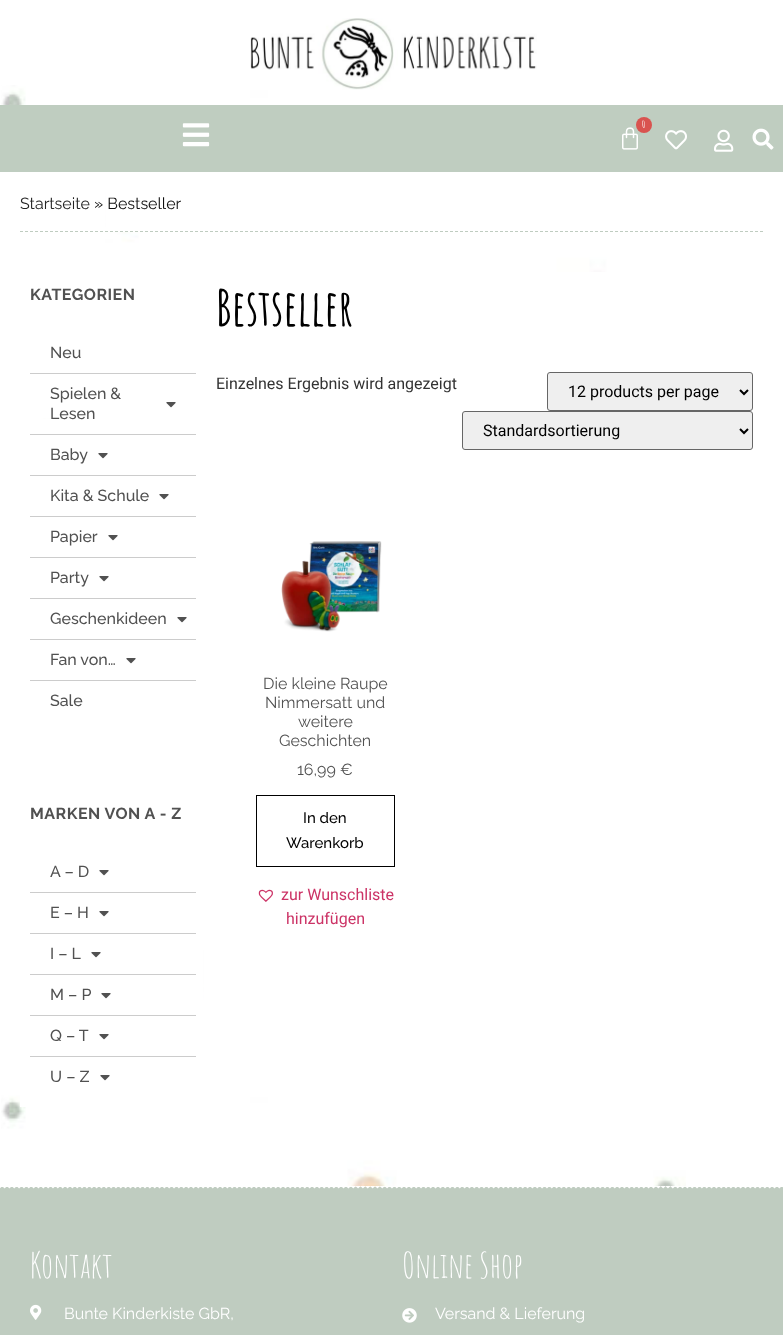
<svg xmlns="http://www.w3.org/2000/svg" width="783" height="1335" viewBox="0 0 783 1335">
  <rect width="100%" height="100%" fill="rgb(255,255,255)"/>
  <image x="1" y="85" width="685" height="1102" href="pic1.png"/>
  <image x="250" y="18" width="287" height="72" href="pic2.png"/>
  <rect x="0" y="105" width="783" height="67" fill="rgb(191,205,192)"/>
  <image x="182" y="123" width="28" height="24" href="pic3.png"/>
  <image x="622" y="127" width="16" height="23" href="pic4.png"/>
  <circle cx="644" cy="125" r="8" fill="rgb(217,83,79)"/>
  <text x="642" y="128" font-family="Amatic SC" font-size="10" font-weight="bold" fill="rgb(255,255,255)">0</text>
  <image x="665" y="130" width="22" height="20" href="pic5.png"/>
  <image x="714" y="129" width="20" height="23" href="pic6.png"/>
  <image x="752" y="128" width="22" height="22" href="pic7.png"/>
  <rect x="106" y="172" width="580" height="60" fill="rgb(255,255,255)"/>
  <path d="M20 231.5H763" fill="none" stroke="rgb(191,204,192)" stroke-dasharray="3 2"/>
  <text x="20" y="209" font-family="Raleway" font-size="16" fill="rgb(35,35,35)">Startseite</text>
  <text x="94" y="209" font-family="Raleway" font-size="16" fill="rgb(14,14,14)">» Bestseller</text>
  <rect x="20" y="419" width="183" height="688" fill="rgb(255,255,255)"/>
  <text x="30" y="300" font-family="Raleway" font-size="16" font-weight="bold" letter-spacing="0.5" fill="rgb(81,81,81)">KATEGORIEN</text>
  <rect x="30" y="373" width="166" height="1" fill="rgb(204,204,204)"/>
  <text x="50" y="358" font-family="Raleway" font-size="16" font-weight="500" fill="rgb(81,81,81)">Neu</text>
  <rect x="30" y="434" width="166" height="1" fill="rgb(204,204,204)"/>
  <text x="50" y="399" font-family="Raleway" font-size="16" font-weight="500" fill="rgb(81,81,81)">Spielen &amp;</text>
  <image x="166" y="402" width="10" height="6" href="pic8.png"/>
  <text x="50" y="419" font-family="Raleway" font-size="16" font-weight="500" fill="rgb(81,81,81)">Lesen</text>
  <rect x="30" y="475" width="166" height="1" fill="rgb(204,204,204)"/>
  <text x="50" y="460" font-family="Raleway" font-size="16" font-weight="500" fill="rgb(81,81,81)">Baby</text>
  <image x="98" y="453" width="10" height="6" href="pic8.png"/>
  <rect x="30" y="516" width="166" height="1" fill="rgb(204,204,204)"/>
  <text x="50" y="501" font-family="Raleway" font-size="16" font-weight="500" fill="rgb(81,81,81)">Kita &amp; Schule</text>
  <image x="159" y="494" width="10" height="6" href="pic8.png"/>
  <rect x="30" y="557" width="166" height="1" fill="rgb(204,204,204)"/>
  <text x="50" y="542" font-family="Raleway" font-size="16" font-weight="500" fill="rgb(81,81,81)">Papier</text>
  <image x="108" y="535" width="10" height="6" href="pic8.png"/>
  <rect x="30" y="598" width="166" height="1" fill="rgb(204,204,204)"/>
  <text x="50" y="583" font-family="Raleway" font-size="16" font-weight="500" fill="rgb(81,81,81)">Party</text>
  <image x="99" y="576" width="10" height="6" href="pic8.png"/>
  <rect x="30" y="639" width="166" height="1" fill="rgb(204,204,204)"/>
  <text x="50" y="624" font-family="Raleway" font-size="16" font-weight="500" fill="rgb(81,81,81)">Geschenkideen</text>
  <image x="177" y="617" width="10" height="6" href="pic8.png"/>
  <rect x="30" y="680" width="166" height="1" fill="rgb(204,204,204)"/>
  <text x="50" y="665" font-family="Raleway" font-size="16" font-weight="500" fill="rgb(81,81,81)">Fan von…</text>
  <image x="126" y="658" width="10" height="6" href="pic8.png"/>
  <text x="50" y="706" font-family="Raleway" font-size="16" font-weight="500" fill="rgb(81,81,81)">Sale</text>
  <text x="30" y="819" font-family="Raleway" font-size="16" font-weight="bold" letter-spacing="0.5" fill="rgb(81,81,81)">MARKEN VON A - Z</text>
  <rect x="30" y="892" width="166" height="1" fill="rgb(204,204,204)"/>
  <text x="50" y="877" font-family="Raleway" font-size="16" font-weight="500" fill="rgb(81,81,81)">A – D</text>
  <image x="99" y="870" width="10" height="6" href="pic8.png"/>
  <rect x="30" y="933" width="166" height="1" fill="rgb(204,204,204)"/>
  <text x="50" y="918" font-family="Raleway" font-size="16" font-weight="500" fill="rgb(81,81,81)">E – H</text>
  <image x="99" y="911" width="10" height="6" href="pic8.png"/>
  <rect x="30" y="974" width="166" height="1" fill="rgb(204,204,204)"/>
  <text x="50" y="959" font-family="Raleway" font-size="16" font-weight="500" fill="rgb(81,81,81)">I – L</text>
  <image x="91" y="952" width="10" height="6" href="pic8.png"/>
  <rect x="30" y="1015" width="166" height="1" fill="rgb(204,204,204)"/>
  <text x="50" y="1000" font-family="Raleway" font-size="16" font-weight="500" fill="rgb(81,81,81)">M – P</text>
  <image x="101" y="993" width="10" height="6" href="pic8.png"/>
  <rect x="30" y="1056" width="166" height="1" fill="rgb(204,204,204)"/>
  <text x="50" y="1041" font-family="Raleway" font-size="16" font-weight="500" fill="rgb(81,81,81)">Q – T</text>
  <image x="99" y="1034" width="10" height="6" href="pic8.png"/>
  <text x="50" y="1082" font-family="Raleway" font-size="16" font-weight="500" fill="rgb(81,81,81)">U – Z</text>
  <image x="100" y="1075" width="10" height="6" href="pic8.png"/>
  <rect x="218" y="272" width="468" height="825" fill="rgb(255,255,255)"/>
  <text x="216" y="326" font-family="Amatic SC" font-size="50" font-weight="bold" fill="rgb(0,0,0)">Bestseller</text>
  <text x="216" y="389" font-family="Roboto" font-size="16" fill="rgb(51,51,51)">Einzelnes Ergebnis wird angezeigt</text>
  <rect x="547.5" y="372.5" width="205" height="38" rx="2.5" fill="rgb(239,239,239)" stroke="rgb(102,102,102)"/>
  <path d="M740 390L744 394L748 390" fill="none" stroke="rgb(0,0,0)" stroke-width="2"/>
  <text x="568" y="397" font-family="Roboto" font-size="16" fill="rgb(0,0,0)">12 products per page</text>
  <rect x="462.5" y="411.5" width="290" height="38" rx="2.5" fill="rgb(239,239,239)" stroke="rgb(102,102,102)"/>
  <path d="M740 429L744 433L748 429" fill="none" stroke="rgb(0,0,0)" stroke-width="2"/>
  <text x="483" y="436" font-family="Roboto" font-size="16" fill="rgb(0,0,0)">Standardsortierung</text>
  <image x="281" y="541" width="101" height="91" href="pic9.png"/>
  <g font-family="Raleway" font-size="16" fill="rgb(81,81,81)">
    <text x="263" y="689">Die kleine Raupe</text>
    <text x="265" y="708">Nimmersatt und</text>
    <text x="298" y="727">weitere</text>
    <text x="279" y="746">Geschichten</text>
    <text x="297" y="775">16,99 €</text>
  </g>
  <rect x="256.5" y="795.5" width="138" height="71" fill="none" stroke="rgb(0,0,0)"/>
  <g font-family="Raleway" font-size="15" font-weight="500" fill="rgb(0,0,0)">
    <text x="303" y="823">In den</text>
    <text x="286" y="848">Warenkorb</text>
  </g>
  <image x="258" y="889" width="15" height="13" href="pic10.png"/>
  <g font-family="Roboto" font-size="16" fill="rgb(204,51,102)">
    <text x="281" y="900">zur Wunschliste</text>
    <text x="286" y="924">hinzufügen</text>
  </g>
  <rect x="0" y="1187" width="783" height="148" fill="rgb(191,204,192)"/>
  <image x="0" y="1186" width="783" height="3" href="pic11.png"/>
  <text x="30" y="1278" font-family="Amatic SC" font-size="35" fill="rgb(255,255,255)">Kontakt</text>
  <image x="30" y="1304" width="12" height="16" href="pic12.png"/>
  <text x="64" y="1319" font-family="Raleway" font-size="16" fill="rgb(255,255,255)">Bunte Kinderkiste GbR,</text>
  <text x="402" y="1278" font-family="Amatic SC" font-size="35" fill="rgb(255,255,255)">Online Shop</text>
  <image x="402" y="1308" width="15" height="15" href="pic13.png"/>
  <text x="435" y="1319" font-family="Raleway" font-size="16" fill="rgb(255,255,255)">Versand &amp; Lieferung</text>
</svg>
